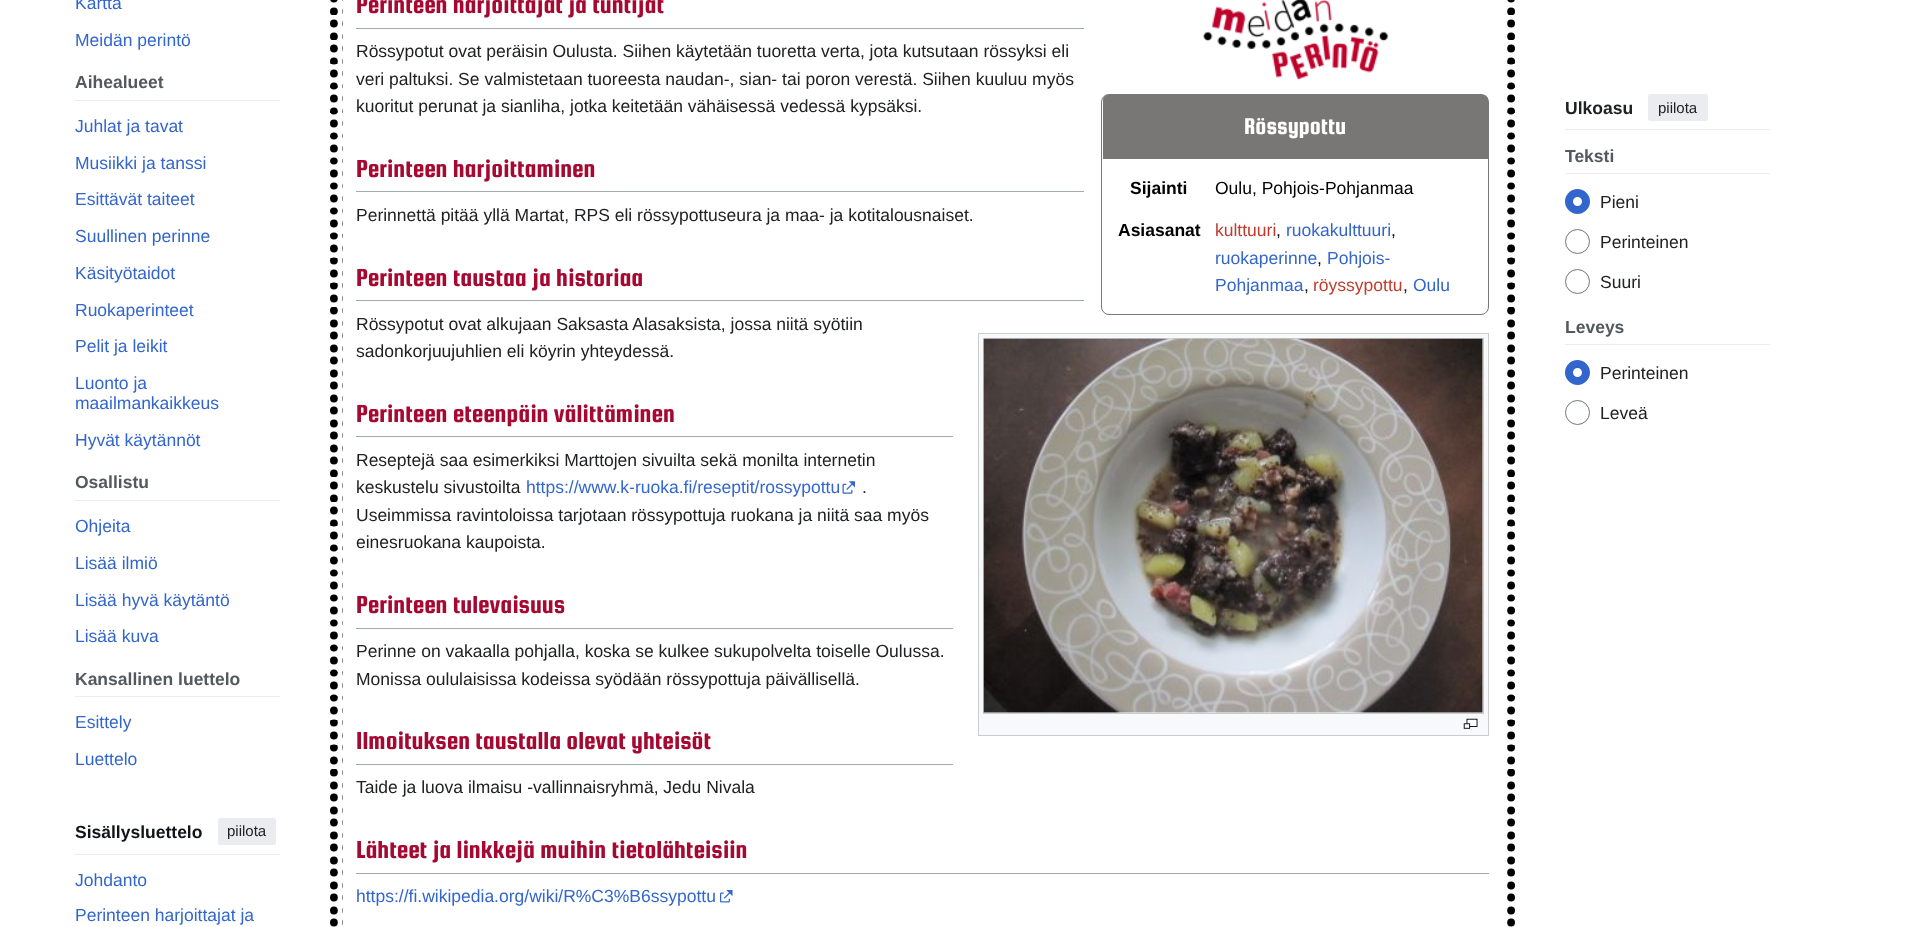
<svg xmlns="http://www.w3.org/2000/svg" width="1909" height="927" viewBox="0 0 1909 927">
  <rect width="100%" height="100%" fill="rgb(255,255,255)"/>
  <g font-family="Liberation Sans" font-size="17.5" fill="rgb(51,102,204)">
    <text x="75" y="9">Kartta</text>
    <text x="75" y="46">Meidän perintö</text>
  </g>
  <rect x="75" y="100" width="205" height="1" fill="rgb(234,236,240)"/>
  <text x="75" y="88" font-family="Liberation Sans" font-size="17.5" font-weight="bold" fill="rgb(84,89,93)">Aihealueet</text>
  <g font-family="Liberation Sans" font-size="17.5" fill="rgb(51,102,204)">
    <text x="75" y="132">Juhlat ja tavat</text>
    <text x="75" y="169">Musiikki ja tanssi</text>
    <text x="75" y="205">Esittävät taiteet</text>
    <text x="75" y="242">Suullinen perinne</text>
    <text x="75" y="279">Käsityötaidot</text>
    <text x="75" y="316">Ruokaperinteet</text>
    <text x="75" y="352">Pelit ja leikit</text>
    <text>
      <tspan x="75" y="389">Luonto ja</tspan>
      <tspan x="75" y="409">maailmankaikkeus</tspan>
    </text>
    <text x="75" y="446">Hyvät käytännöt</text>
  </g>
  <rect x="75" y="500" width="205" height="1" fill="rgb(234,236,240)"/>
  <text x="75" y="488" font-family="Liberation Sans" font-size="17.5" font-weight="bold" fill="rgb(84,89,93)">Osallistu</text>
  <g font-family="Liberation Sans" font-size="17.5" fill="rgb(51,102,204)">
    <text x="75" y="532">Ohjeita</text>
    <text x="75" y="569">Lisää ilmiö</text>
    <text x="75" y="606">Lisää hyvä käytäntö</text>
    <text x="75" y="642">Lisää kuva</text>
  </g>
  <rect x="75" y="696" width="205" height="1" fill="rgb(234,236,240)"/>
  <text x="75" y="685" font-family="Liberation Sans" font-size="17.5" font-weight="bold" fill="rgb(84,89,93)">Kansallinen luettelo</text>
  <g font-family="Liberation Sans" font-size="17.5" fill="rgb(51,102,204)">
    <text x="75" y="728">Esittely</text>
    <text x="75" y="765">Luettelo</text>
  </g>
  <rect x="75" y="854" width="205" height="1" fill="rgb(234,236,240)"/>
  <text x="75" y="838" font-family="Liberation Sans" font-size="17.5" font-weight="bold" fill="rgb(16,20,24)">Sisällysluettelo</text>
  <rect x="218" y="818" width="58" height="27" rx="2.5" fill="rgb(234,236,240)"/>
  <text x="227" y="836" font-family="Liberation Sans" font-size="15" fill="rgb(32,33,34)">piilota</text>
  <g font-family="Liberation Sans" font-size="17.5" fill="rgb(51,102,204)">
    <text x="75" y="886">Johdanto</text>
    <text x="75" y="921">Perinteen harjoittajat ja</text>
  </g>
  <image x="330" y="0" width="1185" height="927" href="pic1.png"/>
  <rect x="356" y="28" width="728" height="1" fill="rgb(162,169,177)"/>
  <text x="356" y="13" font-family="Squada One" font-size="26.25" fill="rgb(165,9,49)">Perinteen harjoittajat ja tuntijat</text>
  <g font-family="Liberation Sans" font-size="17.5" fill="rgb(32,33,34)">
    <text>
      <tspan x="356" y="57">Rössypotut ovat peräisin Oulusta. Siihen käytetään tuoretta verta, jota kutsutaan rössyksi eli</tspan>
      <tspan x="356" y="85">veri paltuksi. Se valmistetaan tuoreesta naudan-, sian- tai poron verestä. Siihen kuuluu myös</tspan>
      <tspan x="356" y="112">kuoritut perunat ja sianliha, jotka keitetään vähäisessä vedessä kypsäksi.</tspan>
    </text>
  </g>
  <rect x="356" y="191" width="728" height="1" fill="rgb(162,169,177)"/>
  <text x="356" y="177" font-family="Squada One" font-size="26.25" fill="rgb(165,9,49)">Perinteen harjoittaminen</text>
  <image x="1202" y="0" width="187" height="80" href="pic2.png"/>
  <rect x="1101.5" y="94.5" width="387" height="220" rx="7.5" fill="none" stroke="rgb(121,118,118)"/>
  <path d="M1108 95H1483C1486 95 1488 97 1488 100V159H1103V100C1103 97 1105 95 1108 95Z" fill="rgb(121,118,118)"/>
  <text x="1244" y="134" font-family="Squada One" font-size="24.5" fill="rgb(255,255,255)">Rössypottu</text>
  <text x="1130" y="194" font-family="Liberation Sans" font-size="17.5" font-weight="bold" fill="rgb(0,0,0)">Sijainti</text>
  <text x="1215" y="194" font-family="Liberation Sans" font-size="17.5" fill="rgb(0,0,0)">Oulu, Pohjois-Pohjanmaa</text>
  <text x="1118" y="236" font-family="Liberation Sans" font-size="17.5" font-weight="bold" fill="rgb(0,0,0)">Asiasanat</text>
  <text x="1215" y="236" font-family="Liberation Sans" font-size="17.5" fill="rgb(191,60,44)">kulttuuri</text>
  <text x="1276" y="236" font-family="Liberation Sans" font-size="17.5" fill="rgb(0,0,0)">,</text>
  <text x="1286" y="236" font-family="Liberation Sans" font-size="17.5" fill="rgb(51,102,204)">ruokakulttuuri</text>
  <text x="1391" y="236" font-family="Liberation Sans" font-size="17.5" fill="rgb(0,0,0)">,</text>
  <text x="1215" y="264" font-family="Liberation Sans" font-size="17.5" fill="rgb(51,102,204)">ruokaperinne</text>
  <text x="1317" y="264" font-family="Liberation Sans" font-size="17.5" fill="rgb(0,0,0)">,</text>
  <g font-family="Liberation Sans" font-size="17.5" fill="rgb(51,102,204)">
    <text x="1327" y="264">Pohjois-</text>
    <text x="1215" y="291">Pohjanmaa</text>
  </g>
  <text x="1304" y="291" font-family="Liberation Sans" font-size="17.5" fill="rgb(0,0,0)">,</text>
  <text x="1313" y="291" font-family="Liberation Sans" font-size="17.5" fill="rgb(191,60,44)">röyssypottu</text>
  <text x="1403" y="291" font-family="Liberation Sans" font-size="17.5" fill="rgb(0,0,0)">,</text>
  <text x="1413" y="291" font-family="Liberation Sans" font-size="17.5" fill="rgb(51,102,204)">Oulu</text>
  <text x="356" y="221" font-family="Liberation Sans" font-size="17.5" fill="rgb(32,33,34)">Perinnettä pitää yllä Martat, RPS eli rössypottuseura ja maa- ja kotitalousnaiset.</text>
  <rect x="356" y="300" width="728" height="1" fill="rgb(162,169,177)"/>
  <text x="356" y="286" font-family="Squada One" font-size="26.25" fill="rgb(165,9,49)">Perinteen taustaa ja historiaa</text>
  <g font-family="Liberation Sans" font-size="17.5" fill="rgb(32,33,34)">
    <text>
      <tspan x="356" y="330">Rössypotut ovat alkujaan Saksasta Alasaksista, jossa niitä syötiin</tspan>
      <tspan x="356" y="357">sadonkorjuujuhlien eli köyrin yhteydessä.</tspan>
    </text>
  </g>
  <rect x="979" y="334" width="509" height="401" fill="rgb(248,249,250)"/>
  <rect x="978" y="333" width="511" height="1" fill="rgb(200,204,209)"/>
  <rect x="978" y="735" width="511" height="1" fill="rgb(200,204,209)"/>
  <rect x="1488" y="333" width="1" height="403" fill="rgb(200,204,209)"/>
  <rect x="978" y="333" width="1" height="403" fill="rgb(200,204,209)"/>
  <rect x="983.5" y="338.5" width="500" height="375" fill="rgb(255,255,255)" stroke="rgb(200,204,209)"/>
  <image x="983" y="338" width="500" height="375" href="pic3.png"/>
  <image x="1463" y="718" width="15" height="11" href="pic4.png"/>
  <rect x="356" y="436" width="597" height="1" fill="rgb(162,169,177)"/>
  <text x="356" y="422" font-family="Squada One" font-size="26.25" fill="rgb(165,9,49)">Perinteen eteenpäin välittäminen</text>
  <g font-family="Liberation Sans" font-size="17.5" fill="rgb(32,33,34)">
    <text>
      <tspan x="356" y="466">Reseptejä saa esimerkiksi Marttojen sivuilta sekä monilta internetin</tspan>
      <tspan x="356" y="493">keskustelu sivustoilta</tspan>
    </text>
  </g>
  <text x="526" y="493" font-family="Liberation Sans" font-size="17.5" fill="rgb(51,102,204)">https://www.k-ruoka.fi/reseptit/rossypottu</text>
  <image x="842" y="481" width="13" height="13" href="pic5.png"/>
  <g font-family="Liberation Sans" font-size="17.5" fill="rgb(32,33,34)">
    <text x="862" y="493">.</text>
    <text>
      <tspan x="356" y="521">Useimmissa ravintoloissa tarjotaan rössypottuja ruokana ja niitä saa myös</tspan>
      <tspan x="356" y="548">einesruokana kaupoista.</tspan>
    </text>
  </g>
  <rect x="356" y="628" width="597" height="1" fill="rgb(162,169,177)"/>
  <text x="356" y="613" font-family="Squada One" font-size="26.25" fill="rgb(165,9,49)">Perinteen tulevaisuus</text>
  <g font-family="Liberation Sans" font-size="17.5" fill="rgb(32,33,34)">
    <text>
      <tspan x="356" y="657">Perinne on vakaalla pohjalla, koska se kulkee sukupolvelta toiselle Oulussa.</tspan>
      <tspan x="356" y="685">Monissa oululaisissa kodeissa syödään rössypottuja päivällisellä.</tspan>
    </text>
  </g>
  <rect x="356" y="764" width="597" height="1" fill="rgb(162,169,177)"/>
  <text x="356" y="749" font-family="Squada One" font-size="26.25" fill="rgb(165,9,49)">Ilmoituksen taustalla olevat yhteisöt</text>
  <text x="356" y="793" font-family="Liberation Sans" font-size="17.5" fill="rgb(32,33,34)">Taide ja luova ilmaisu -vallinnaisryhmä, Jedu Nivala</text>
  <rect x="356" y="873" width="1133" height="1" fill="rgb(162,169,177)"/>
  <text x="356" y="858" font-family="Squada One" font-size="26.25" fill="rgb(165,9,49)">Lähteet ja linkkejä muihin tietolähteisiin</text>
  <text x="356" y="902" font-family="Liberation Sans" font-size="17.5" fill="rgb(51,102,204)">https://fi.wikipedia.org/wiki/R%C3%B6ssypottu</text>
  <image x="720" y="890" width="13" height="13" href="pic6.png"/>
  <rect x="1565" y="129" width="205" height="1" fill="rgb(234,236,240)"/>
  <text x="1565" y="114" font-family="Liberation Sans" font-size="17.5" font-weight="bold" fill="rgb(32,33,34)">Ulkoasu</text>
  <rect x="1648" y="94" width="60" height="27" rx="2.5" fill="rgb(234,236,240)"/>
  <text x="1658" y="113" font-family="Liberation Sans" font-size="15" fill="rgb(32,33,34)">piilota</text>
  <rect x="1565" y="173" width="205" height="1" fill="rgb(234,236,240)"/>
  <text x="1565" y="162" font-family="Liberation Sans" font-size="17.5" font-weight="bold" fill="rgb(84,89,93)">Teksti</text>
  <circle cx="1577.5" cy="201.5" r="8.5" fill="none" stroke="rgb(51,102,204)" stroke-width="8"/>
  <text x="1600" y="208" font-family="Liberation Sans" font-size="17.5" fill="rgb(32,33,34)">Pieni</text>
  <circle cx="1577.5" cy="241.5" r="12" fill="none" stroke="rgb(114,119,125)"/>
  <text x="1600" y="248" font-family="Liberation Sans" font-size="17.5" fill="rgb(32,33,34)">Perinteinen</text>
  <circle cx="1577.5" cy="281.5" r="12" fill="none" stroke="rgb(114,119,125)"/>
  <text x="1600" y="288" font-family="Liberation Sans" font-size="17.5" fill="rgb(32,33,34)">Suuri</text>
  <rect x="1565" y="344" width="205" height="1" fill="rgb(234,236,240)"/>
  <text x="1565" y="333" font-family="Liberation Sans" font-size="17.5" font-weight="bold" fill="rgb(84,89,93)">Leveys</text>
  <circle cx="1577.5" cy="372.5" r="8.5" fill="none" stroke="rgb(51,102,204)" stroke-width="8"/>
  <text x="1600" y="379" font-family="Liberation Sans" font-size="17.5" fill="rgb(32,33,34)">Perinteinen</text>
  <circle cx="1577.5" cy="412.5" r="12" fill="none" stroke="rgb(114,119,125)"/>
  <text x="1600" y="419" font-family="Liberation Sans" font-size="17.5" fill="rgb(32,33,34)">Leveä</text>
</svg>
